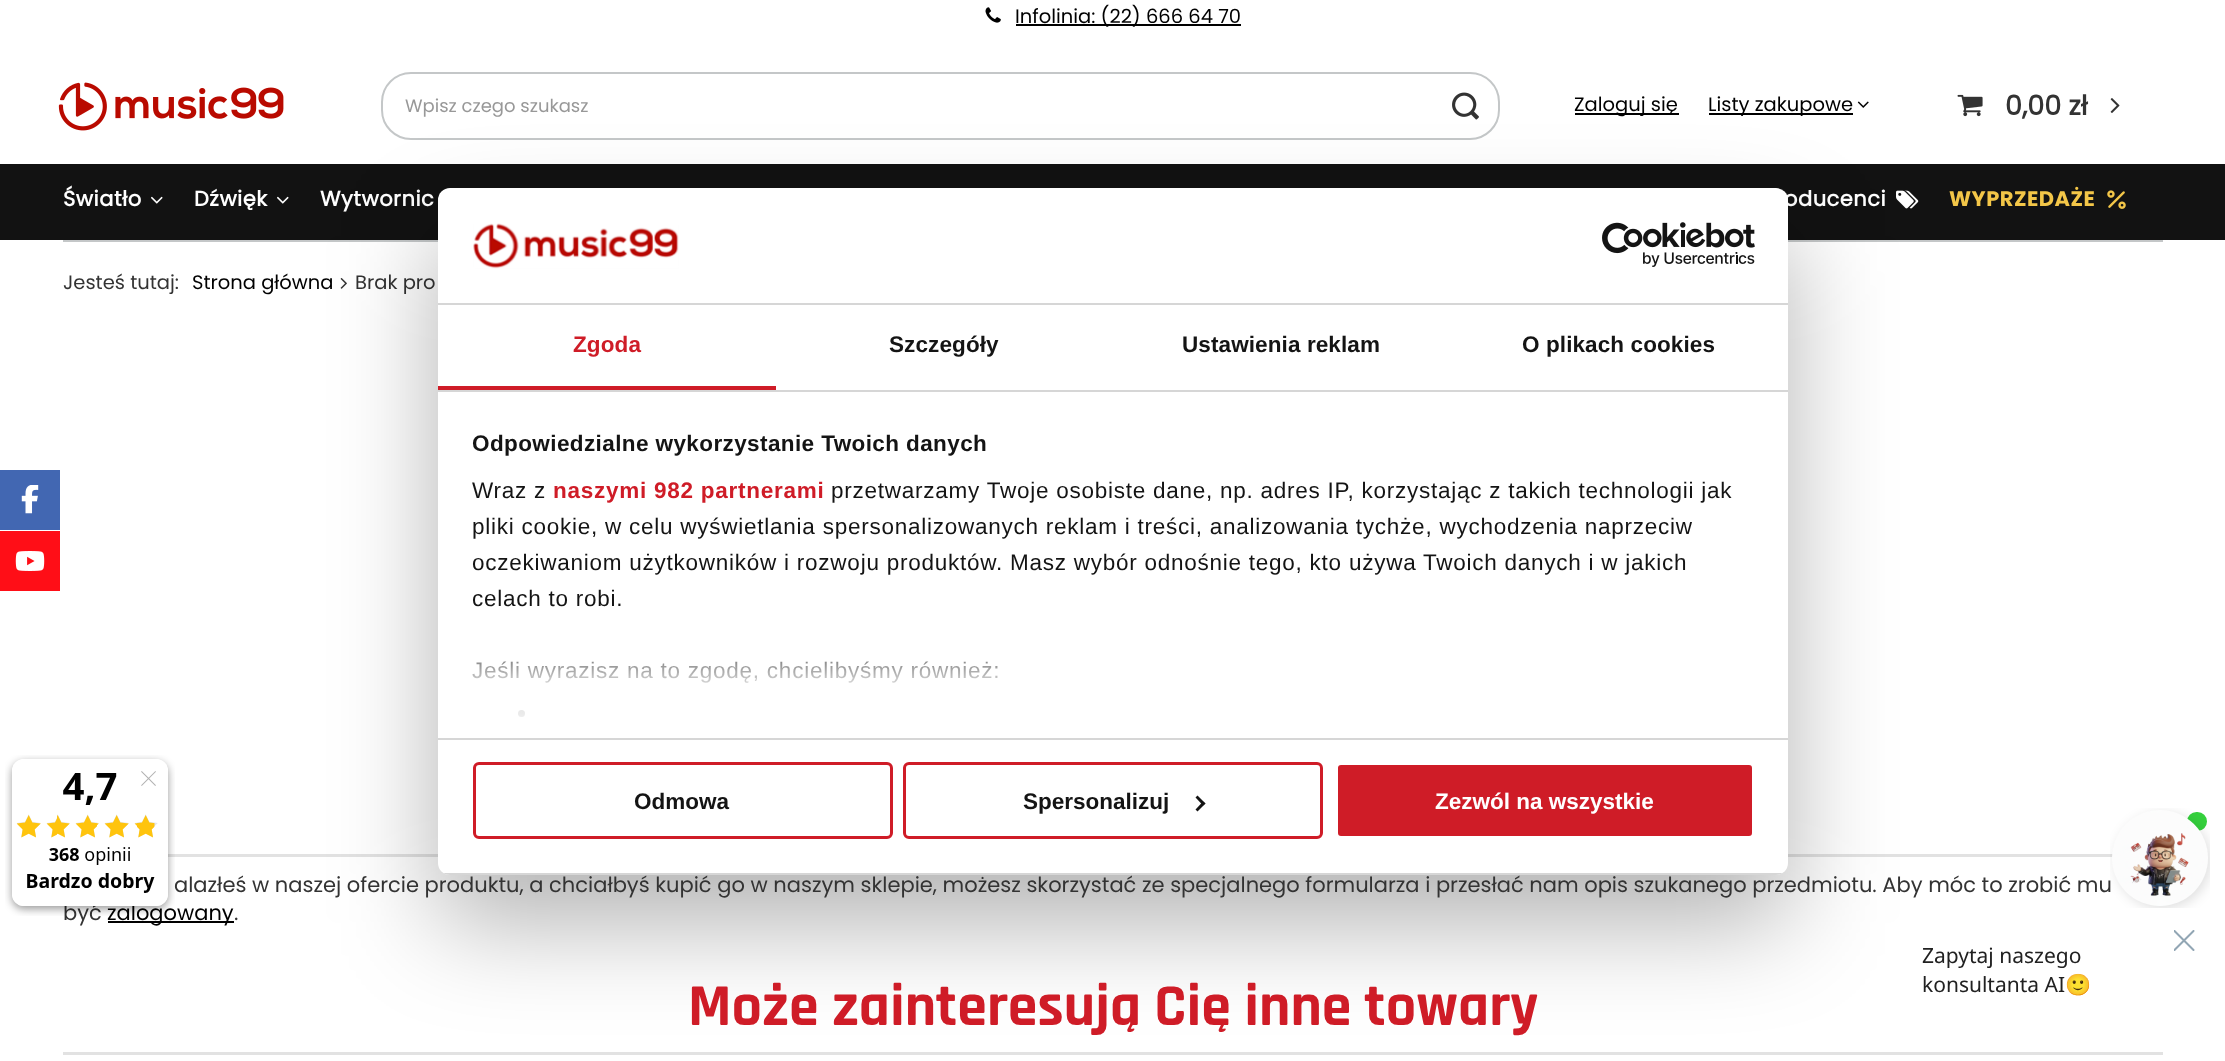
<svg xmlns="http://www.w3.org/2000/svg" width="2225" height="1061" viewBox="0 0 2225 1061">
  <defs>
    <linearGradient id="g1" gradientUnits="userSpaceOnUse" x1="1098" y1="738" x2="1098" y2="626"><stop offset="0" stop-color="rgb(255,255,255)"/><stop offset="0.5" stop-color="rgb(255,255,255)" stop-opacity="0.8"/><stop offset="1" stop-color="rgb(255,255,255)" stop-opacity="0"/></linearGradient>
    <clipPath id="clip1"><rect x="438" y="188" width="1350" height="687" rx="12"/></clipPath>
    <clipPath id="clip2"><rect x="2174" y="930" width="21" height="21"/></clipPath>
  </defs>
  <rect width="100%" height="100%" fill="rgb(255,255,255)"/>
  <image x="985" y="7" width="16" height="16" href="pic1.png"/>
  <rect x="1016" y="24" width="225" height="2" fill="rgb(0,0,0)"/>
  <text x="1015" y="23" font-family="Poppins" font-size="19.5" fill="rgb(0,0,0)">Infolinia: (22) 666 64 70</text>
  <image x="58" y="82" width="226" height="49" href="pic2.png"/>
  <rect x="382" y="73" width="1117" height="66" rx="29" fill="none" stroke="rgb(196,199,200)" stroke-width="2"/>
  <text x="405" y="112" font-family="Poppins" font-size="18" fill="rgb(152,152,152)">Wpisz czego szukasz</text>
  <image x="1452" y="92" width="27" height="28" href="pic3.png"/>
  <rect x="1575" y="113" width="104" height="2" fill="rgb(0,0,0)"/>
  <text x="1574" y="111" font-family="Poppins" font-size="19.5" fill="rgb(0,0,0)">Zaloguj się</text>
  <rect x="1709" y="113" width="144" height="2" fill="rgb(0,0,0)"/>
  <text x="1708" y="111" font-family="Poppins" font-size="19.5" fill="rgb(0,0,0)">Listy zakupowe</text>
  <image x="1857" y="101" width="12" height="7" href="pic4.png"/>
  <image x="1957" y="94" width="26" height="23" href="pic5.png"/>
  <text x="2005" y="115" font-family="Poppins" font-size="27" font-weight="bold" fill="rgb(51,51,51)">0,00 zł</text>
  <image x="2110" y="98" width="10" height="15" href="pic6.png"/>
  <rect x="63" y="240" width="2100" height="2" fill="rgb(196,199,200)"/>
  <rect x="0" y="164" width="2225" height="76" fill="rgb(18,18,18)"/>
  <text x="63" y="206" font-family="Poppins" font-size="21" font-weight="bold" letter-spacing="0.5" fill="rgb(255,255,255)">Światło</text>
  <image x="151" y="196" width="12" height="8" href="pic7.png"/>
  <text x="194" y="206" font-family="Poppins" font-size="21" font-weight="bold" letter-spacing="0.5" fill="rgb(255,255,255)">Dźwięk</text>
  <image x="277" y="196" width="12" height="8" href="pic7.png"/>
  <g font-family="Poppins" font-size="21" font-weight="bold" letter-spacing="0.5" fill="rgb(255,255,255)">
    <text x="320" y="206">Wytwornic</text>
    <text x="1784" y="206">oducenci</text>
  </g>
  <image x="1896" y="190" width="23" height="19" href="pic8.png"/>
  <text x="1949" y="206" font-family="'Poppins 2'" font-size="21" font-weight="bold" letter-spacing="0.5" fill="rgb(243,198,72)">WYPRZEDAŻE</text>
  <image x="2107" y="190" width="19" height="19" href="pic9.png"/>
  <text x="63" y="289" font-family="Poppins" font-size="19.5" fill="rgb(51,51,51)">Jesteś tutaj:</text>
  <text x="192" y="289" font-family="Poppins" font-size="19.5" fill="rgb(0,0,0)">Strona główna</text>
  <image x="340" y="278" width="7" height="11" href="pic10.png"/>
  <text x="355" y="289" font-family="Poppins" font-size="19.5" fill="rgb(51,51,51)">Brak pro</text>
  <rect x="0" y="470" width="60" height="60" fill="rgb(66,103,178)"/>
  <image x="21" y="485" width="18" height="29" href="pic11.png"/>
  <rect x="0" y="531" width="60" height="60" fill="rgb(255,14,23)"/>
  <image x="15" y="551" width="30" height="20" href="pic12.png"/>
  <rect x="168" y="854" width="1945" height="3" fill="rgb(226,226,226)"/>
  <rect x="63" y="1052" width="2100" height="3" fill="rgb(226,226,226)"/>
  <rect x="438" y="236" width="1350" height="687" rx="12" fill="rgba(0,0,0,0.3)" filter="blur(51px)"/>
  <rect x="438" y="188" width="1350" height="687" rx="12" fill="rgb(255,255,255)"/>
  <rect x="438" y="303" width="1350" height="2" fill="rgb(214,214,214)"/>
  <image x="473" y="223" width="206" height="46" href="pic13.png"/>
  <image x="1602" y="222" width="153" height="45" href="pic14.png"/>
  <rect x="438" y="390" width="1350" height="2" fill="rgb(214,214,214)"/>
  <rect x="438" y="386" width="338" height="4" fill="rgb(207,28,39)"/>
  <text x="573" y="352" font-family="Liberation Sans" font-size="22.5" font-weight="bold" letter-spacing="0.1" fill="rgb(207,28,39)">Zgoda</text>
  <g font-family="Liberation Sans" font-size="22.5" font-weight="bold" letter-spacing="0.1" fill="rgb(20,20,20)">
    <text x="889" y="352">Szczegóły</text>
    <text x="1182" y="352">Ustawienia reklam</text>
    <text x="1522" y="352">O plikach cookies</text>
  </g>
  <rect x="438" y="738" width="1350" height="2" fill="rgb(214,214,214)"/>
  <text x="472" y="451" font-family="Liberation Sans" font-size="22.5" font-weight="bold" letter-spacing="0.4" fill="rgb(20,20,20)">Odpowiedzialne wykorzystanie Twoich danych</text>
  <text x="472" y="498" font-family="Liberation Sans" font-size="22.5" letter-spacing="0.75" fill="rgb(20,20,20)">Wraz z</text>
  <text x="553" y="498" font-family="Liberation Sans" font-size="22.5" font-weight="bold" letter-spacing="0.75" fill="rgb(207,28,39)">naszymi 982 partnerami</text>
  <g font-family="Liberation Sans" font-size="22.5" letter-spacing="0.75" fill="rgb(20,20,20)">
    <text x="831" y="498">przetwarzamy Twoje osobiste dane, np. adres IP, korzystając z takich technologii jak</text>
    <text>
      <tspan x="472" y="534">pliki cookie, w celu wyświetlania spersonalizowanych reklam i treści, analizowania tychże, wychodzenia naprzeciw</tspan>
      <tspan x="472" y="570">oczekiwaniom użytkowników i rozwoju produktów. Masz wybór odnośnie tego, kto używa Twoich danych i w jakich</tspan>
      <tspan x="472" y="606">celach to robi.</tspan>
    </text>
    <text x="472" y="678">Jeśli wyrazisz na to zgodę, chcielibyśmy również:</text>
  </g>
  <circle cx="521.5" cy="713.5" r="3.5" fill="rgb(20,20,20)"/>
  <rect x="472" y="661" width="526" height="56" fill="url(#g1)"/>
  <g clip-path="url(#clip1)">
    <rect x="438" y="873" width="1350" height="2" fill="rgb(214,214,214)"/>
  </g>
  <rect x="474.5" y="763.5" width="417" height="74" rx="4.5" fill="none" stroke="rgb(207,28,39)" stroke-width="3"/>
  <text x="634" y="809" font-family="Liberation Sans" font-size="22.5" font-weight="bold" fill="rgb(20,20,20)">Odmowa</text>
  <rect x="904.5" y="763.5" width="417" height="74" rx="4.5" fill="none" stroke="rgb(207,28,39)" stroke-width="3"/>
  <text x="1023" y="809" font-family="Liberation Sans" font-size="22.5" font-weight="bold" fill="rgb(20,20,20)">Spersonalizuj</text>
  <path d="M1197.5 795.5L1205.5 803.5L1203 805.5L1195.5 797.5Z" fill="rgb(20,20,20)"/>
  <path d="M1203 801.5L1205.5 803.5L1197.5 811.5L1195.5 809.5Z" fill="rgb(20,20,20)"/>
  <rect x="1336.5" y="763.5" width="417" height="74" rx="4.5" fill="rgb(207,28,39)" stroke="rgb(255,255,255)" stroke-width="3"/>
  <text x="1435" y="809" font-family="Liberation Sans" font-size="22.5" font-weight="bold" fill="rgb(255,255,255)">Zezwól na wszystkie</text>
  <text x="63" y="920" font-family="Poppins" font-size="21" fill="rgb(51,51,51)">być</text>
  <rect x="108" y="921" width="126" height="2" fill="rgb(0,0,0)"/>
  <text x="107" y="920" font-family="Poppins" font-size="21" fill="rgb(0,0,0)">zalogowany</text>
  <image x="5" y="755" width="170" height="161" href="pic15.png"/>
  <g font-family="Poppins" font-size="21" fill="rgb(51,51,51)">
    <text x="174" y="892">alazłeś w naszej ofercie produktu, a chciałbyś kupić go w naszym sklepie, możesz skorzystać ze specjalnego formularza i przesłać nam opis szukanego przedmiotu. Aby móc to zrobić mu</text>
    <text x="234" y="920">.</text>
  </g>
  <text x="688" y="1025" font-family="Rajdhani" font-size="60" font-weight="bold" fill="rgb(207,28,39)">Może zainteresują Cię inne towary</text>
  <rect x="2185.5" y="810.5" width="23" height="22" rx="11" fill="rgb(53,208,61)" stroke="rgb(255,255,255)" stroke-width="3"/>
  <image x="2110" y="808" width="100" height="100" href="pic16.png"/>
  <g clip-path="url(#clip2)">
    <path d="M2193.5 931L2174.5 950M2174.5 931L2193.5 950" fill="none" stroke="rgb(146,166,180)" stroke-width="2" stroke-linecap="round" stroke-linejoin="round"/>
  </g>
  <g font-family="Noto Sans" font-size="21" fill="rgb(33,33,33)">
    <text>
      <tspan x="1922" y="963">Zapytaj naszego</tspan>
      <tspan x="1922" y="992">konsultanta AI</tspan>
    </text>
  </g>
  <text x="2065" y="992" font-family="Noto Color Emoji" font-size="21" fill="rgb(33,33,33)">🙂</text>
</svg>
